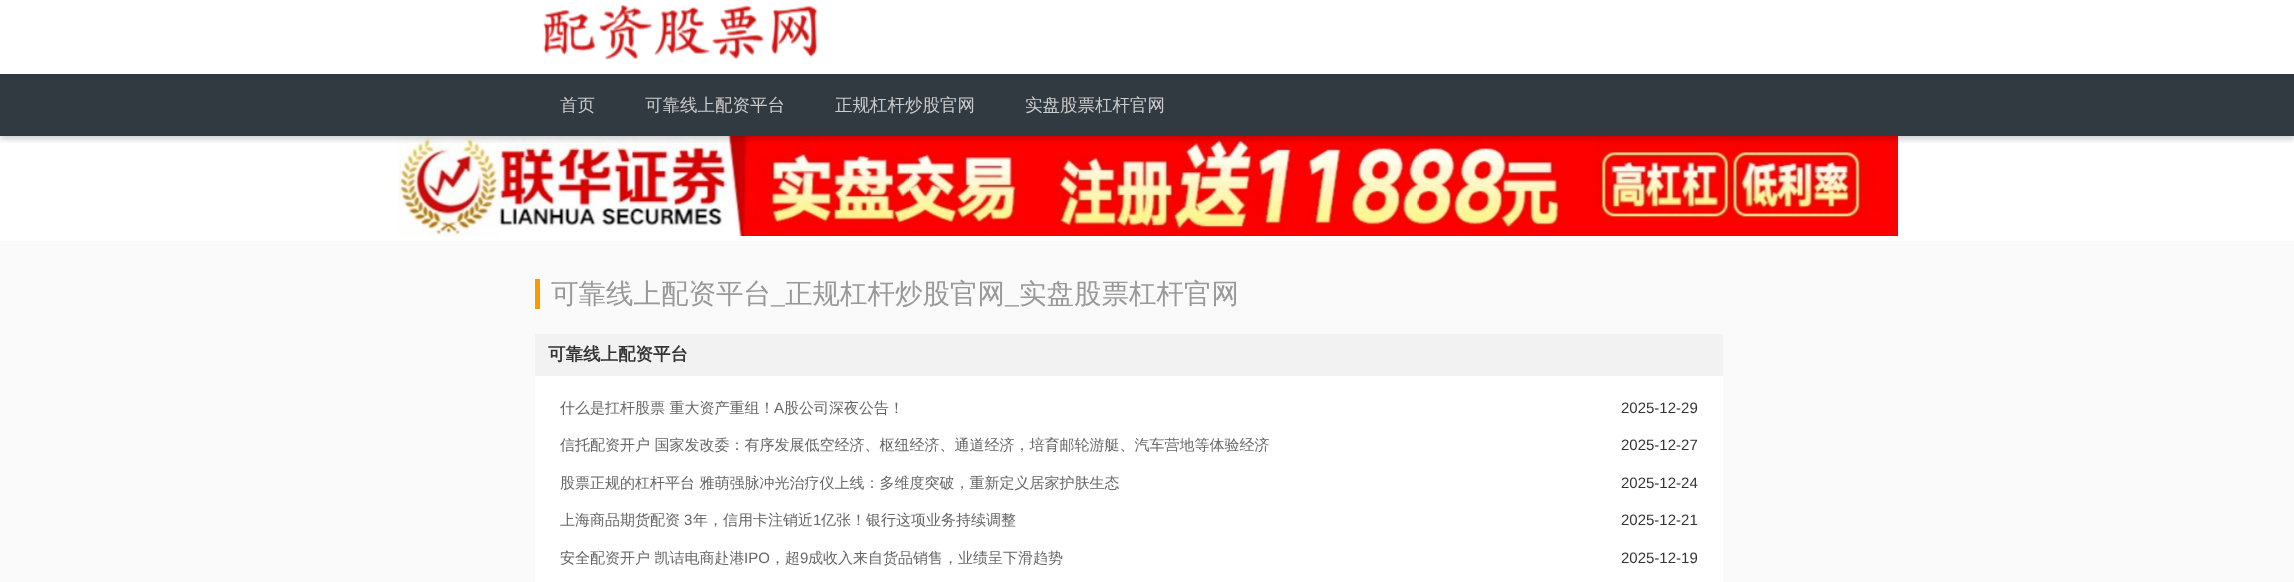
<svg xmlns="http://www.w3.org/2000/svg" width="2294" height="582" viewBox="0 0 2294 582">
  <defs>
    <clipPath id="clip1"><rect x="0" y="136" width="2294" height="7"/></clipPath>
  </defs>
  <rect width="100%" height="100%" fill="rgb(255,255,255)"/>
  <image x="398" y="136" width="1500" height="100" href="pic2.png"/>
  <g clip-path="url(#clip1)">
    <rect x="0" y="3" width="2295" height="136" fill="rgba(0,0,0,0.2)" filter="blur(3px)"/>
  </g>
  <image x="543" y="4" width="275" height="56" href="pic1.png"/>
  <rect x="0" y="74" width="2294" height="62" fill="rgb(48,58,64)"/>
  <g font-family="WenQuanYi Zen Hei" font-size="17.5" font-weight="500" fill="rgb(204,204,204)">
    <text x="560" y="111">首页</text>
    <text x="645" y="111">可靠线上配资平台</text>
    <text x="835" y="111">正规杠杆炒股官网</text>
    <text x="1025" y="111">实盘股票杠杆官网</text>
  </g>
  <rect x="0" y="241" width="2294" height="341" fill="rgb(250,250,250)"/>
  <rect x="535" y="279" width="5" height="30" fill="rgb(250,153,0)"/>
  <text x="551" y="303" font-family="WenQuanYi Zen Hei" font-size="27.5" font-weight="500" fill="rgb(153,153,153)">可靠线上配资平台</text>
  <text x="771" y="303" font-family="Liberation Serif" font-size="27.5" fill="rgb(153,153,153)">_</text>
  <text x="785" y="303" font-family="WenQuanYi Zen Hei" font-size="27.5" font-weight="500" fill="rgb(153,153,153)">正规杠杆炒股官网</text>
  <text x="1005" y="303" font-family="Liberation Serif" font-size="27.5" fill="rgb(153,153,153)">_</text>
  <text x="1019" y="303" font-family="WenQuanYi Zen Hei" font-size="27.5" font-weight="500" fill="rgb(153,153,153)">实盘股票杠杆官网</text>
  <rect x="535" y="334" width="1188" height="42" fill="rgb(242,242,242)"/>
  <text x="548" y="360" font-family="WenQuanYi Zen Hei" font-size="17.5" font-weight="bold" fill="rgb(51,51,51)">可靠线上配资平台</text>
  <rect x="535" y="376" width="1188" height="206" fill="rgb(255,255,255)"/>
  <text x="560" y="413" font-family="WenQuanYi Zen Hei" font-size="15" font-weight="500" fill="rgb(102,102,102)">什么是扛杆股票 重大资产重组！</text>
  <text x="774" y="413" font-family="Liberation Sans" font-size="15" fill="rgb(102,102,102)">A</text>
  <text x="784" y="413" font-family="WenQuanYi Zen Hei" font-size="15" font-weight="500" fill="rgb(102,102,102)">股公司深夜公告！</text>
  <text x="1621" y="413" font-family="Liberation Sans" font-size="15" fill="rgb(51,51,51)">2025-12-29</text>
  <text x="560" y="450" font-family="WenQuanYi Zen Hei" font-size="15" font-weight="500" fill="rgb(102,102,102)">信托配资开户 国家发改委：有序发展低空经济、枢纽经济、通道经济，培育邮轮游艇、汽车营地等体验经济</text>
  <text x="1621" y="450" font-family="Liberation Sans" font-size="15" fill="rgb(51,51,51)">2025-12-27</text>
  <text x="560" y="488" font-family="WenQuanYi Zen Hei" font-size="15" font-weight="500" fill="rgb(102,102,102)">股票正规的杠杆平台 雅萌强脉冲光治疗仪上线：多维度突破，重新定义居家护肤生态</text>
  <text x="1621" y="488" font-family="Liberation Sans" font-size="15" fill="rgb(51,51,51)">2025-12-24</text>
  <text x="560" y="525" font-family="WenQuanYi Zen Hei" font-size="15" font-weight="500" fill="rgb(102,102,102)">上海商品期货配资</text>
  <text x="684" y="525" font-family="Liberation Sans" font-size="15" fill="rgb(102,102,102)">3</text>
  <text x="693" y="525" font-family="WenQuanYi Zen Hei" font-size="15" font-weight="500" fill="rgb(102,102,102)">年，信用卡注销近</text>
  <text x="813" y="525" font-family="Liberation Sans" font-size="15" fill="rgb(102,102,102)">1</text>
  <text x="821" y="525" font-family="WenQuanYi Zen Hei" font-size="15" font-weight="500" fill="rgb(102,102,102)">亿张！银行这项业务持续调整</text>
  <text x="1621" y="525" font-family="Liberation Sans" font-size="15" fill="rgb(51,51,51)">2025-12-21</text>
  <text x="560" y="563" font-family="WenQuanYi Zen Hei" font-size="15" font-weight="500" fill="rgb(102,102,102)">安全配资开户 凯诘电商赴港</text>
  <text x="744" y="563" font-family="Liberation Sans" font-size="15" fill="rgb(102,102,102)">IPO</text>
  <text x="770" y="563" font-family="WenQuanYi Zen Hei" font-size="15" font-weight="500" fill="rgb(102,102,102)">，超</text>
  <text x="800" y="563" font-family="Liberation Sans" font-size="15" fill="rgb(102,102,102)">9</text>
  <text x="808" y="563" font-family="WenQuanYi Zen Hei" font-size="15" font-weight="500" fill="rgb(102,102,102)">成收入来自货品销售，业绩呈下滑趋势</text>
  <text x="1621" y="563" font-family="Liberation Sans" font-size="15" fill="rgb(51,51,51)">2025-12-19</text>
</svg>
